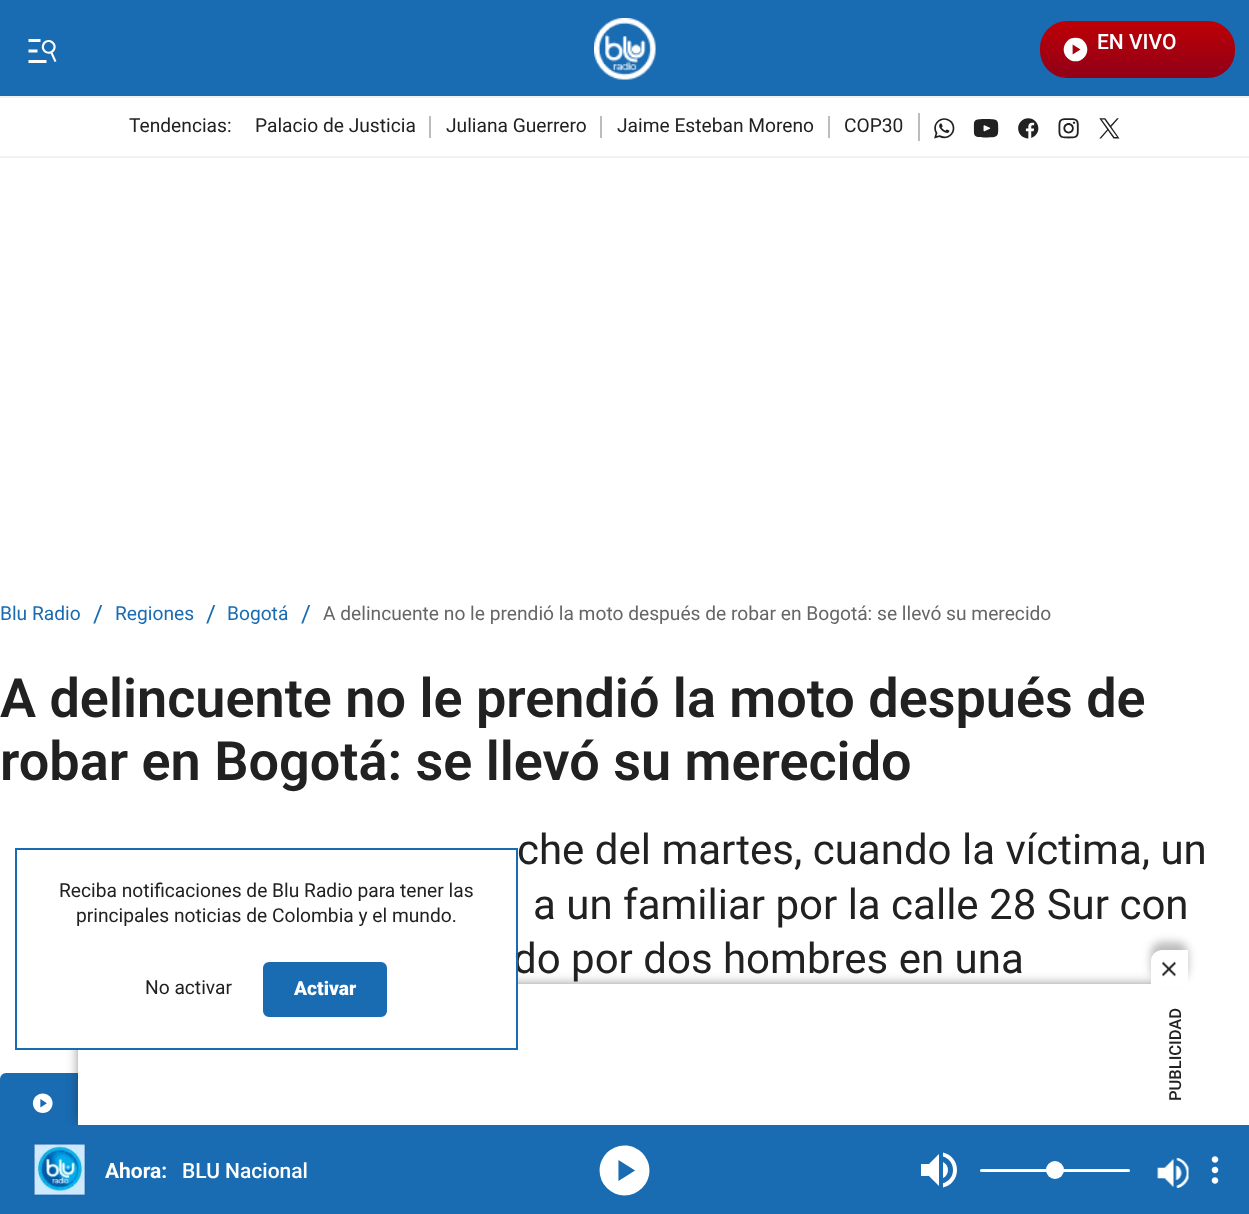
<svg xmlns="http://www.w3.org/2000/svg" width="1249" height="1214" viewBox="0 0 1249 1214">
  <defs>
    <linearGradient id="g1" gradientUnits="userSpaceOnUse" x1="1137" y1="21" x2="1137" y2="78"><stop offset="0" stop-color="rgb(189,0,5)"/><stop offset="1" stop-color="rgb(145,0,25)"/></linearGradient>
  </defs>
  <rect width="100%" height="100%" fill="rgb(255,255,255)"/>
  <rect x="0" y="0" width="1249" height="96" fill="rgb(25,107,178)"/>
  <rect x="0" y="96" width="1249" height="2" fill="rgb(241,241,241)"/>
  <image x="28" y="39" width="29" height="24" href="pic1.png"/>
  <image x="594" y="18" width="62" height="62" href="pic2.png"/>
  <rect x="1040" y="21" width="195" height="57" rx="27" fill="url(#g1)"/>
  <image x="1063" y="37" width="25" height="25" href="pic3.png"/>
  <text x="1097" y="49" font-family="Roboto" font-size="21" font-weight="500" fill="rgb(255,255,255)">EN VIVO</text>
  <rect x="0" y="156" width="1249" height="2" fill="rgb(241,241,241)"/>
  <g font-family="Roboto" font-size="19.2" fill="rgb(33,33,33)">
    <text x="129" y="132">Tendencias:</text>
    <text x="255" y="132">Palacio de Justicia</text>
  </g>
  <rect x="429" y="116" width="2" height="22" fill="rgb(188,188,188)"/>
  <text x="446" y="132" font-family="Roboto" font-size="19.2" fill="rgb(33,33,33)">Juliana Guerrero</text>
  <rect x="600" y="116" width="2" height="22" fill="rgb(188,188,188)"/>
  <text x="617" y="132" font-family="Roboto" font-size="19.2" fill="rgb(33,33,33)">Jaime Esteban Moreno</text>
  <rect x="828" y="116" width="2" height="22" fill="rgb(188,188,188)"/>
  <text x="844" y="132" font-family="Roboto" font-size="19.2" fill="rgb(33,33,33)">COP30</text>
  <rect x="918" y="113" width="2" height="28" fill="rgb(188,188,188)"/>
  <image x="934" y="118" width="21" height="21" href="pic4.png"/>
  <image x="973" y="119" width="26" height="19" href="pic5.png"/>
  <image x="1018" y="118" width="21" height="21" href="pic6.png"/>
  <image x="1058" y="118" width="21" height="21" href="pic7.png"/>
  <image x="1099" y="118" width="21" height="21" href="pic8.png"/>
  <text x="0" y="620" font-family="Roboto" font-size="19.2" fill="rgb(25,107,178)">Blu Radio</text>
  <text x="93" y="622" font-family="Roboto" font-size="24" fill="rgb(25,107,178)">/</text>
  <text x="115" y="620" font-family="Roboto" font-size="19.2" fill="rgb(25,107,178)">Regiones</text>
  <text x="206" y="622" font-family="Roboto" font-size="24" fill="rgb(25,107,178)">/</text>
  <text x="227" y="620" font-family="Roboto" font-size="19.2" fill="rgb(25,107,178)">Bogotá</text>
  <text x="301" y="622" font-family="Roboto" font-size="24" fill="rgb(25,107,178)">/</text>
  <text x="323" y="620" font-family="Roboto" font-size="19.2" fill="rgb(102,102,102)">A delincuente no le prendió la moto después de robar en Bogotá: se llevó su merecido</text>
  <g font-family="Roboto" font-size="54" font-weight="600" fill="rgb(33,33,33)">
    <text>
      <tspan x="0" y="717">A delincuente no le prendió la moto después de</tspan>
      <tspan x="0" y="780">robar en Bogotá: se llevó su merecido</tspan>
    </text>
  </g>
  <g font-family="Roboto" font-size="42" fill="rgb(33,33,33)">
    <text x="517" y="864">che del martes, cuando la víctima, un</text>
    <text x="533" y="919">a un familiar por la calle 28 Sur con</text>
    <text x="513" y="973">do por dos hombres en una</text>
  </g>
  <rect x="1" y="1074" width="267" height="58" rx="5" fill="rgb(25,107,178)" stroke="rgb(25,107,178)" stroke-width="2"/>
  <image x="32" y="1093" width="21" height="20" href="pic9.png"/>
  <rect x="83" y="989" width="1086" height="132" fill="rgb(33,33,33)" filter="blur(7.5px)"/>
  <rect x="78" y="984" width="1091" height="141" fill="rgb(255,255,255)"/>
  <rect x="66" y="957" width="450" height="91" fill="rgb(255,255,255)"/>
  <rect x="16" y="849" width="501" height="200" fill="none" stroke="rgb(25,107,178)" stroke-width="2"/>
  <g font-family="Roboto" font-size="19.2" fill="rgb(33,33,33)">
    <text x="59" y="897">Reciba notificaciones de Blu Radio para tener las</text>
    <text x="76" y="922">principales noticias de Colombia y el mundo.</text>
    <text x="145" y="994">No activar</text>
  </g>
  <rect x="264" y="963" width="122" height="53" rx="5" fill="rgb(25,107,178)" stroke="rgb(25,107,178)" stroke-width="2"/>
  <text x="294" y="995" font-family="Roboto" font-size="19.2" font-weight="900" fill="rgb(255,255,255)">Activar</text>
  <rect x="1169" y="987" width="17" height="138" fill="rgb(255,255,255)"/>
  <rect x="1151" y="942" width="37" height="38" rx="11" fill="rgba(33,33,33,0.3)" filter="blur(4.5px)"/>
  <path d="M1162 950H1188V987H1151V961C1151 955 1156 950 1162 950Z" fill="rgb(255,255,255)"/>
  <image x="1162" y="961" width="14" height="16" href="pic10.png"/>
  <text x="1181" y="1101" transform="rotate(-90 1181 1101)" font-family="Roboto" font-size="16.5" font-weight="500" fill="rgb(33,33,33)">PUBLICIDAD</text>
  <rect x="0" y="1125" width="1249" height="89" fill="rgb(25,107,178)"/>
  <image x="33" y="1143" width="53" height="53" href="pic11.png"/>
  <text x="105" y="1178" font-family="Roboto" font-size="21" font-weight="bold" fill="rgb(255,255,255)">Ahora:</text>
  <text x="182" y="1178" font-family="Roboto" font-size="21" font-weight="500" fill="rgb(255,255,255)">BLU Nacional</text>
  <image x="599" y="1145" width="51" height="51" href="pic12.png"/>
  <image x="921" y="1152" width="36" height="36" href="pic13.png"/>
  <rect x="980" y="1169" width="150" height="3" rx="1.5" fill="rgb(255,255,255)"/>
  <circle cx="1055" cy="1170" r="9" fill="rgb(255,255,255)"/>
  <image x="1157" y="1157" width="32" height="31" href="pic14.png"/>
  <image x="1211" y="1156" width="8" height="28" href="pic15.png"/>
</svg>
